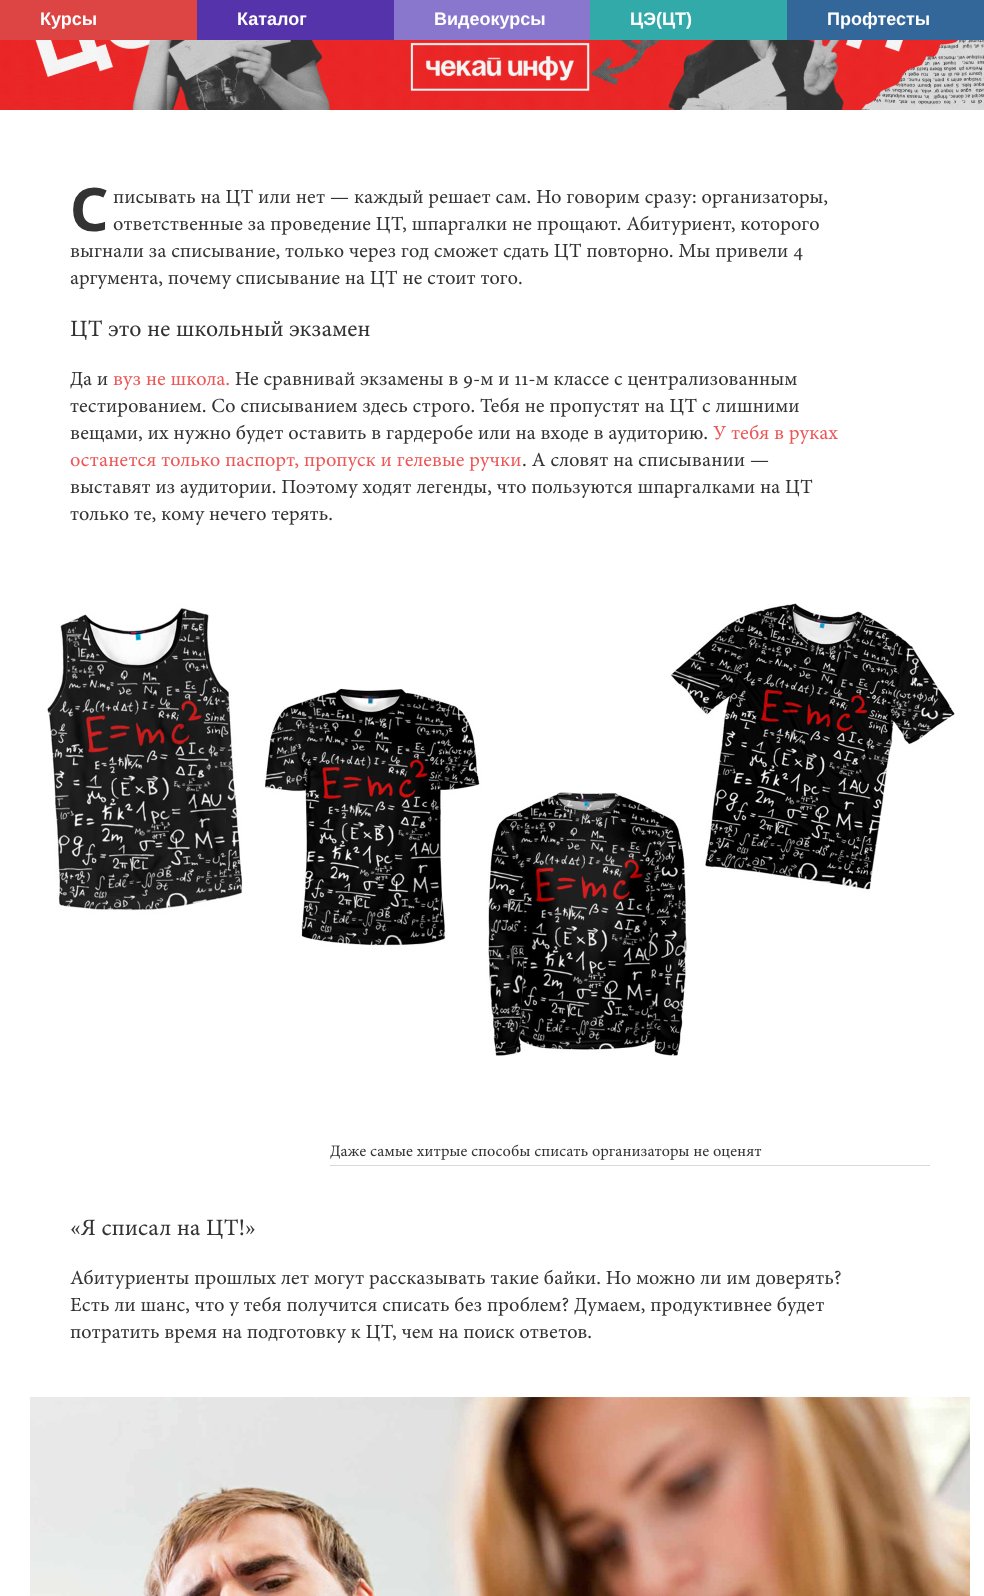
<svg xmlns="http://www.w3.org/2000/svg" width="984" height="1596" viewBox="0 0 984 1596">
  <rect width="100%" height="100%" fill="rgb(255,255,255)"/>
  <rect x="0" y="0" width="197" height="40" fill="rgb(221,68,68)"/>
  <text x="40" y="25" font-family="Liberation Sans" font-size="18" font-weight="bold" fill="rgb(255,255,255)">Курсы</text>
  <rect x="197" y="0" width="197" height="40" fill="rgb(85,51,170)"/>
  <text x="237" y="25" font-family="Liberation Sans" font-size="18" font-weight="bold" fill="rgb(255,255,255)">Каталог</text>
  <rect x="394" y="0" width="196" height="40" fill="rgb(136,119,204)"/>
  <text x="434" y="25" font-family="Liberation Sans" font-size="18" font-weight="bold" fill="rgb(255,255,255)">Видеокурсы</text>
  <rect x="590" y="0" width="197" height="40" fill="rgb(51,170,170)"/>
  <text x="630" y="25" font-family="Liberation Sans" font-size="18" font-weight="bold" fill="rgb(255,255,255)">ЦЭ(ЦТ)</text>
  <rect x="787" y="0" width="197" height="40" fill="rgb(51,102,153)"/>
  <text x="827" y="25" font-family="Liberation Sans" font-size="18" font-weight="bold" fill="rgb(255,255,255)">Профтесты</text>
  <image x="0" y="40" width="984" height="70" href="pic1.png"/>
  <text x="70" y="231" font-family="Noto Sans" font-size="60" font-weight="bold" fill="rgb(51,51,51)">С</text>
  <image x="113" y="189" width="715" height="19" href="pic2.png"/>
  <image x="113" y="215" width="706" height="20" href="pic3.png"/>
  <image x="70" y="243" width="733" height="19" href="pic4.png"/>
  <image x="70" y="270" width="452" height="19" href="pic5.png"/>
  <image x="70" y="320" width="300" height="20" href="pic6.png"/>
  <image x="70" y="372" width="38" height="17" href="pic7.png"/>
  <image x="113" y="376" width="116" height="14" href="pic8.png"/>
  <image x="235" y="372" width="562" height="18" href="pic9.png"/>
  <image x="70" y="397" width="729" height="20" href="pic10.png"/>
  <image x="70" y="424" width="637" height="20" href="pic11.png"/>
  <image x="713" y="424" width="125" height="20" href="pic12.png"/>
  <image x="70" y="456" width="451" height="15" href="pic13.png"/>
  <image x="523" y="452" width="246" height="15" href="pic14.png"/>
  <image x="70" y="479" width="743" height="19" href="pic15.png"/>
  <image x="70" y="510" width="262" height="15" href="pic16.png"/>
  <image x="47" y="603" width="908" height="453" href="pic17.png"/>
  <image x="330" y="1144" width="432" height="16" href="pic18.png"/>
  <rect x="330" y="1165" width="600" height="1" fill="rgb(217,217,217)"/>
  <image x="71" y="1219" width="184" height="20" href="pic19.png"/>
  <image x="70" y="1269" width="771" height="20" href="pic20.png"/>
  <image x="70" y="1296" width="754" height="20" href="pic21.png"/>
  <image x="70" y="1324" width="521" height="19" href="pic22.png"/>
  <image x="30" y="1397" width="940" height="199" href="pic23.png"/>
</svg>
